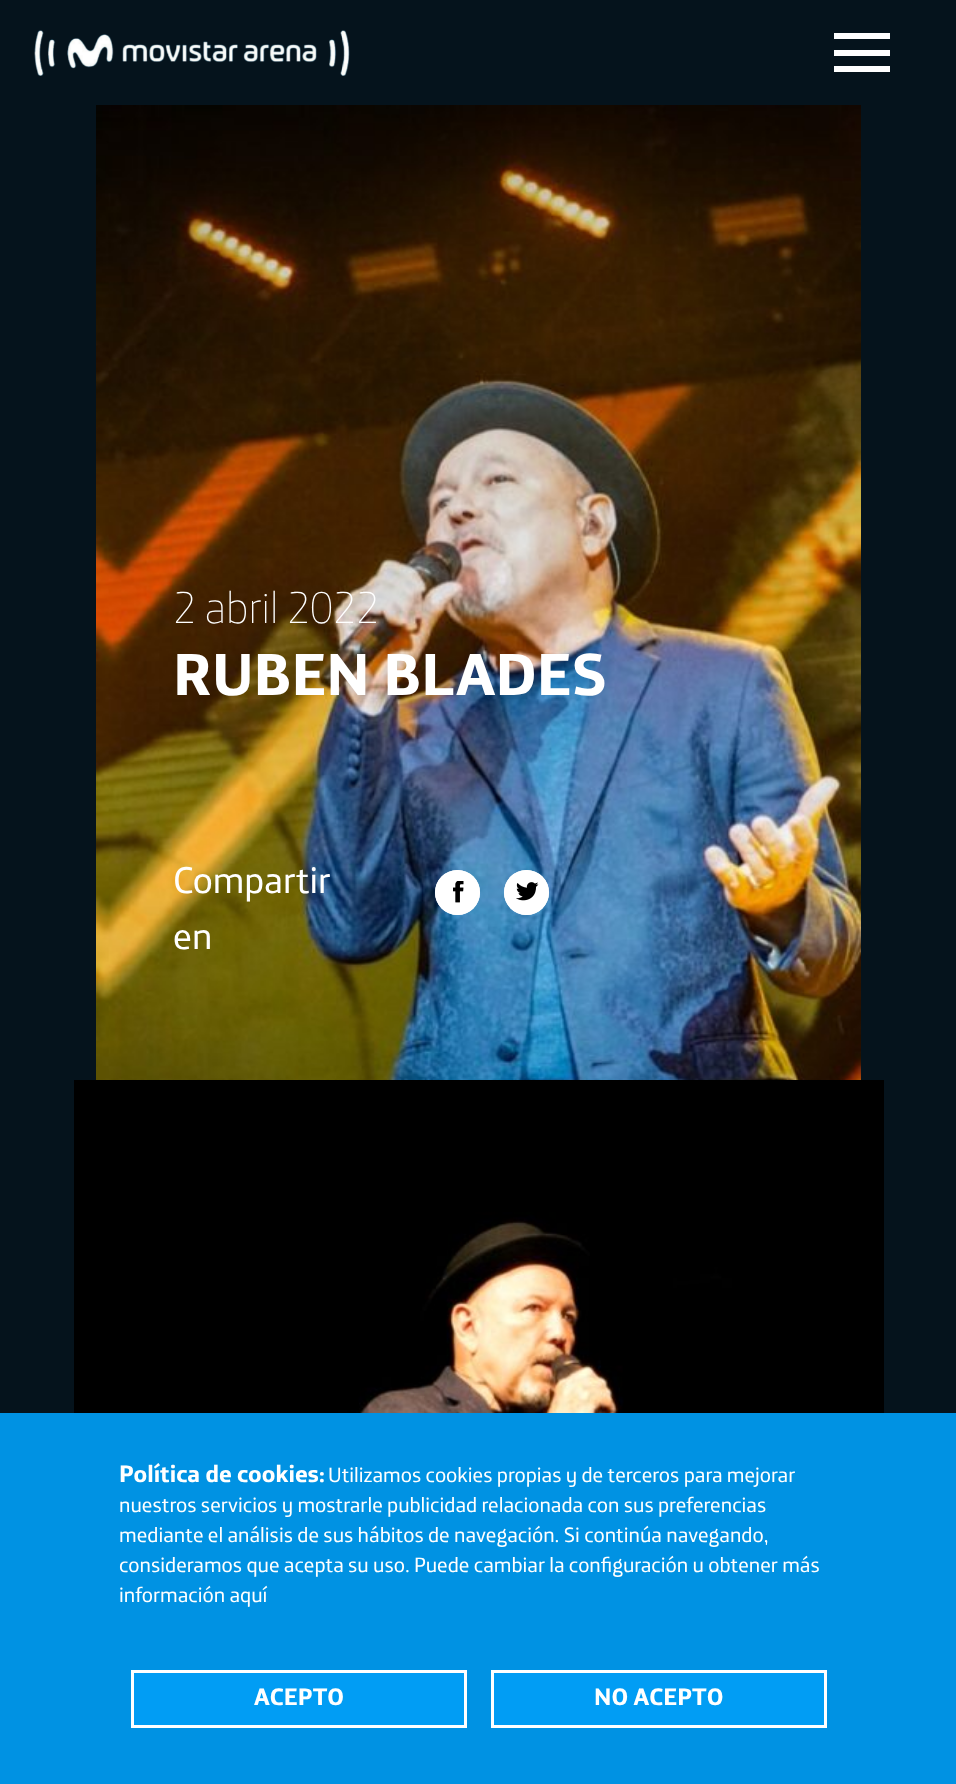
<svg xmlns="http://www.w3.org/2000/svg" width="956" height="1784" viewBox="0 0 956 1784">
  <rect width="100%" height="100%" fill="rgb(5,19,28)"/>
  <image x="34" y="30" width="316" height="46" href="pic1.png"/>
  <rect x="834" y="50" width="56" height="6" fill="rgb(255,255,255)"/>
  <rect x="834" y="33" width="56" height="6" fill="rgb(255,255,255)"/>
  <rect x="834" y="66" width="56" height="6" fill="rgb(255,255,255)"/>
  <image x="96" y="105" width="765" height="975" href="pic2.png"/>
  <text x="173" y="623" font-family="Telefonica" font-size="45" font-weight="200" fill="rgb(255,255,255)">2 abril 2022</text>
  <text x="173" y="695" font-family="Telefonica" font-size="60" font-weight="bold" fill="rgb(255,255,255)">RUBEN BLADES</text>
  <text x="173" y="893" font-family="Telefonica" font-size="37.5" fill="rgb(255,255,255)">Compartir</text>
  <circle cx="457.5" cy="892.5" r="22.5" fill="rgb(255,255,255)"/>
  <image x="453" y="881" width="11" height="22" href="pic3.png"/>
  <circle cx="457.5" cy="892.5" r="21" fill="none" stroke="rgb(255,255,255)" stroke-width="3"/>
  <circle cx="526.5" cy="892.5" r="22.5" fill="rgb(255,255,255)"/>
  <image x="516" y="882" width="23" height="19" href="pic4.png"/>
  <circle cx="526.5" cy="892.5" r="21" fill="none" stroke="rgb(255,255,255)" stroke-width="3"/>
  <text x="173" y="949" font-family="Telefonica" font-size="37.5" fill="rgb(255,255,255)">en</text>
  <image x="74" y="1080" width="810" height="333" href="pic5.png"/>
  <rect x="0" y="1413" width="956" height="371" fill="rgb(0,146,227)"/>
  <text x="119" y="1482" font-family="Telefonica" font-size="24" font-weight="bold" fill="rgb(255,255,255)">Política de cookies:</text>
  <g font-family="Telefonica" font-size="21" fill="rgb(255,255,255)">
    <text x="328" y="1482">Utilizamos cookies propias y de terceros para mejorar</text>
    <text>
      <tspan x="119" y="1512">nuestros servicios y mostrarle publicidad relacionada con sus preferencias</tspan>
      <tspan x="119" y="1542">mediante el análisis de sus hábitos de navegación. Si continúa navegando,</tspan>
      <tspan x="119" y="1572">consideramos que acepta su uso. Puede cambiar la configuración u obtener más</tspan>
      <tspan x="119" y="1602">información aquí</tspan>
    </text>
  </g>
  <rect x="132.5" y="1671.5" width="333" height="55" fill="rgb(1,157,244)" stroke="rgb(255,255,255)" stroke-width="3"/>
  <text x="254" y="1705" font-family="Telefonica" font-size="24" font-weight="bold" fill="rgb(255,255,255)">ACEPTO</text>
  <rect x="492.5" y="1671.5" width="333" height="55" fill="rgb(1,157,244)" stroke="rgb(255,255,255)" stroke-width="3"/>
  <text x="594" y="1705" font-family="Telefonica" font-size="24" font-weight="bold" fill="rgb(255,255,255)">NO ACEPTO</text>
</svg>
